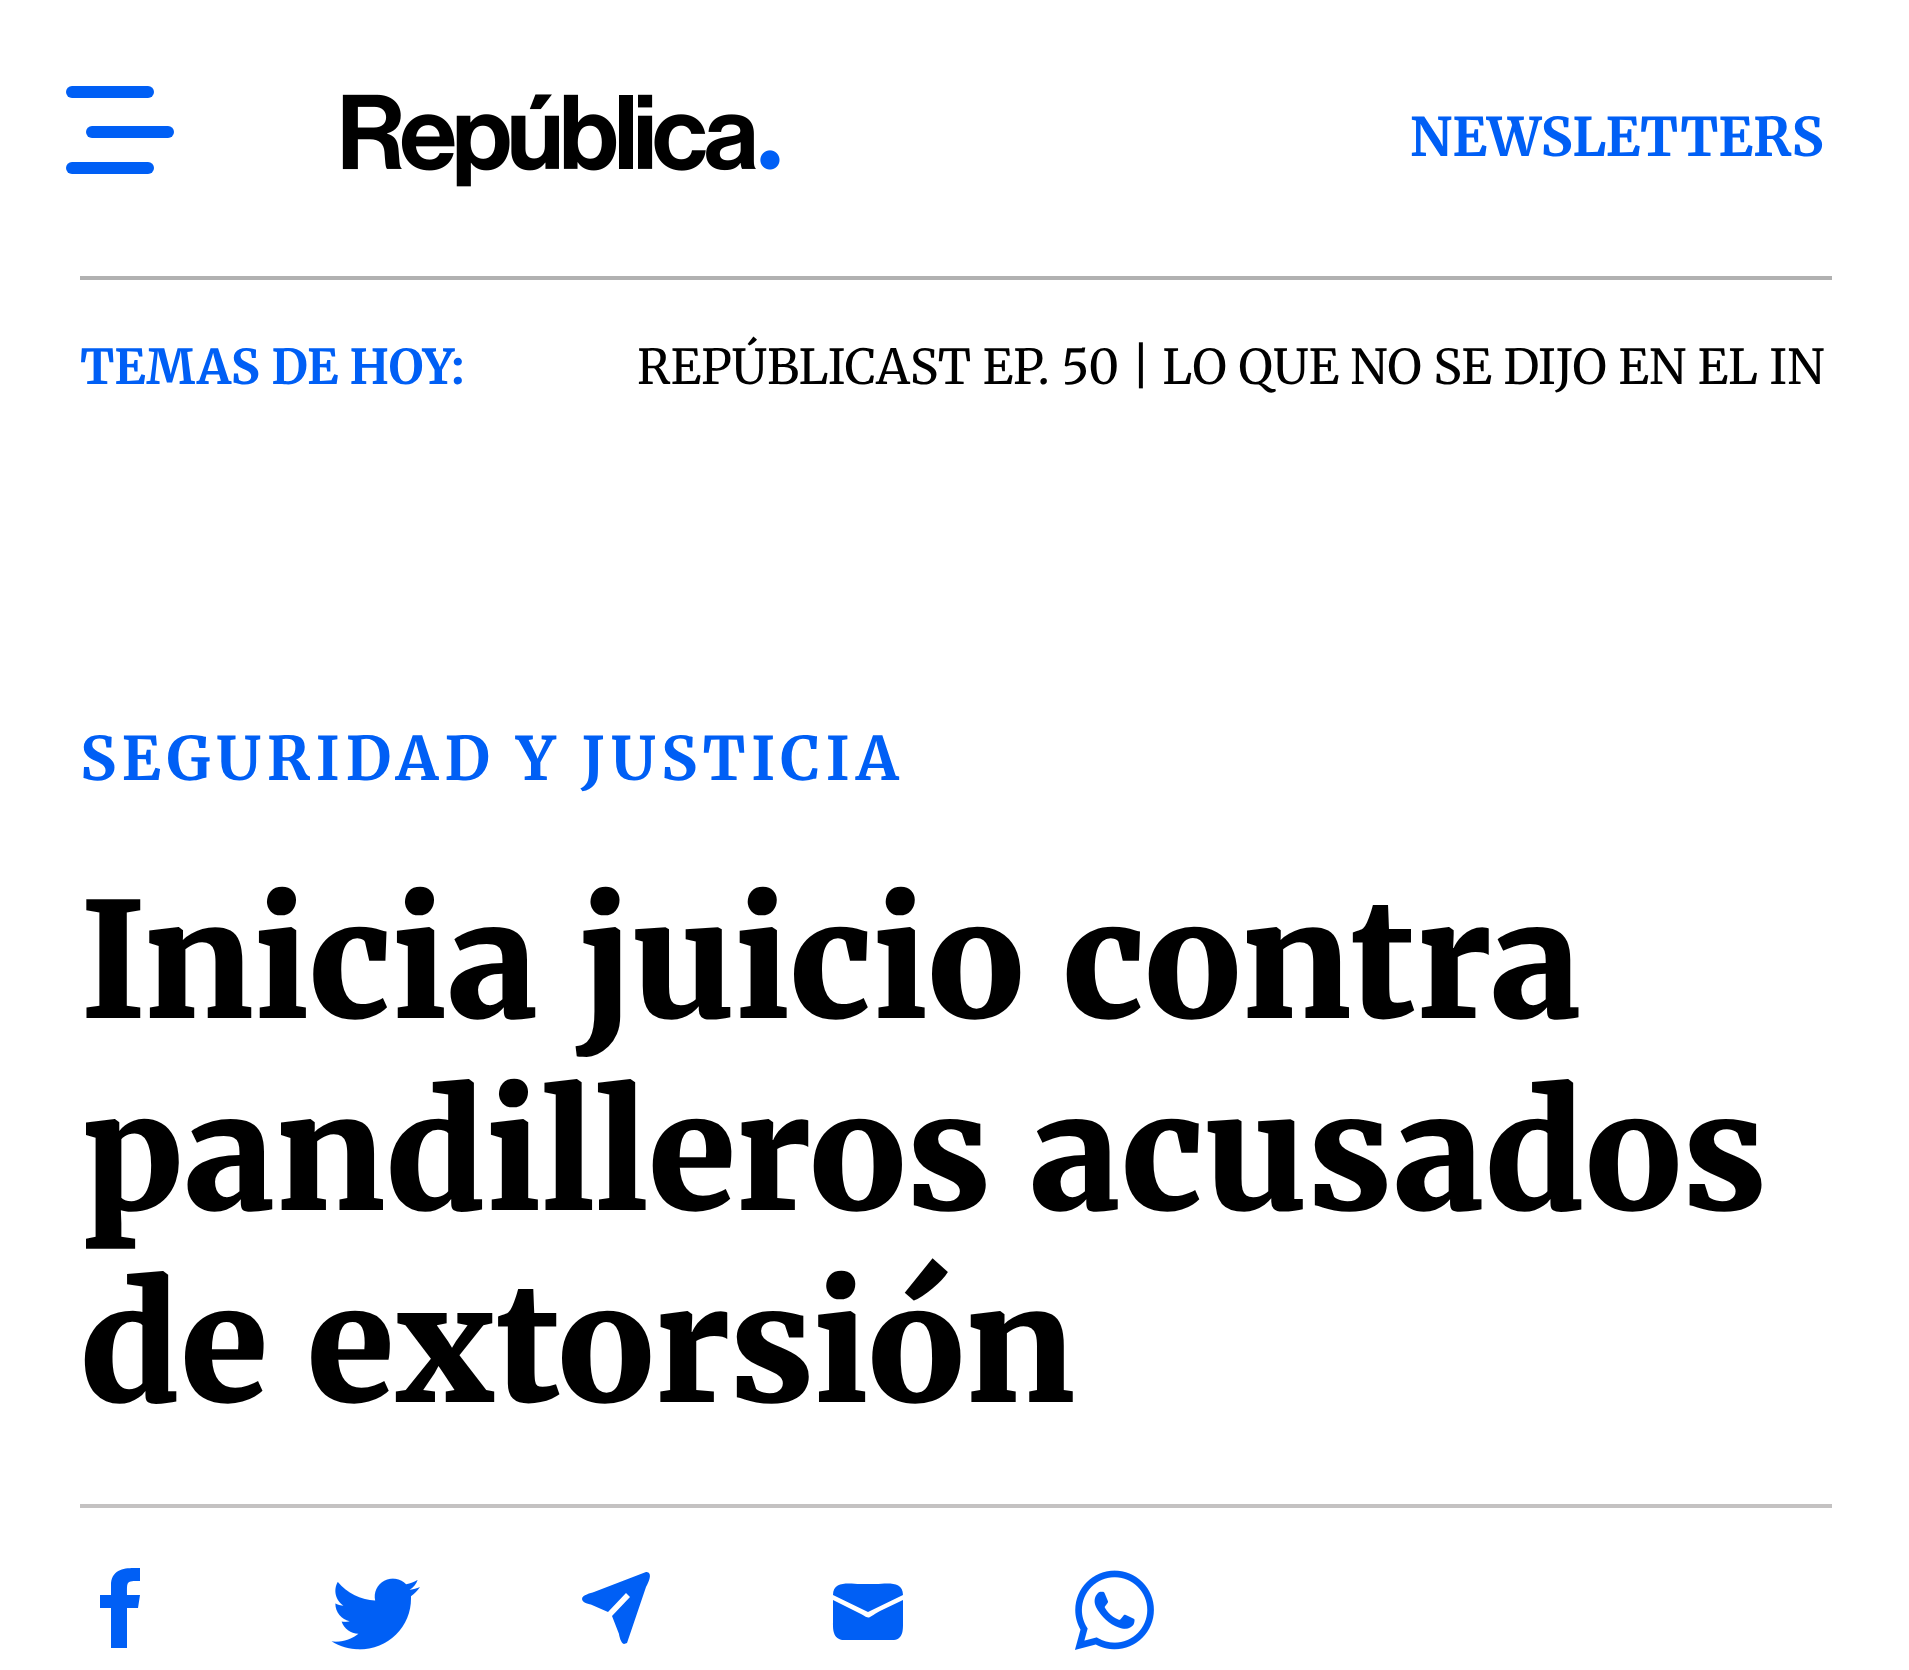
<svg xmlns="http://www.w3.org/2000/svg" width="1909" height="1670" viewBox="0 0 1909 1670">
  <rect width="100%" height="100%" fill="rgb(255,255,255)"/>
  <path d="M72 92H148" fill="none" stroke="rgb(0,95,245)" stroke-width="12" stroke-linecap="round" stroke-linejoin="round"/>
  <path d="M92 132H168" fill="none" stroke="rgb(0,95,245)" stroke-width="12" stroke-linecap="round" stroke-linejoin="round"/>
  <path d="M72 168H148" fill="none" stroke="rgb(0,95,245)" stroke-width="12" stroke-linecap="round" stroke-linejoin="round"/>
  <image x="342" y="94" width="438" height="93" href="pic1.png"/>
  <text x="1410" y="156" font-family="Merriweather" font-size="53.25" font-weight="bold" fill="rgb(0,95,245)">NEWSLETTERS</text>
  <rect x="80" y="276" width="1752" height="4" fill="rgb(177,177,177)"/>
  <text x="80" y="384" font-family="Merriweather" font-size="48" font-weight="bold" fill="rgb(0,95,245)">TEMAS DE HOY:</text>
  <text x="637" y="384" font-family="Merriweather" font-size="48" fill="rgb(0,0,0)">REPÚBLICAST EP. 50 | LO QUE NO SE DIJO EN EL IN</text>
  <text x="80" y="780" font-family="Merriweather" font-size="60" font-weight="bold" letter-spacing="6" fill="rgb(0,95,245)">SEGURIDAD Y JUSTICIA</text>
  <g font-family="Merriweather" font-size="160" font-weight="900" fill="rgb(0,0,0)">
    <text>
      <tspan x="80" y="1018">Inicia juicio contra</tspan>
      <tspan x="80" y="1210">pandilleros acusados</tspan>
      <tspan x="80" y="1402">de extorsión</tspan>
    </text>
  </g>
  <rect x="80" y="1504" width="1752" height="4" fill="rgb(196,194,194)"/>
  <path d="M127 1595C127 1581 126 1581 140 1581V1568C128 1568 113 1567 111 1583V1595H100V1608H111V1648H127V1608H138L140 1595Z" fill="rgb(0,95,245)"/>
  <image x="331" y="1578" width="89" height="72" href="pic2.png"/>
  <path d="M649 1573C648 1572 647 1572 646 1572L594 1592C591 1593 582 1595 582 1599C582 1603 590 1604 592 1605L608 1612L626 1593L630 1597L612 1616L619 1634C619 1635 621 1644 624 1644C625 1644 626 1643 627 1643L646 1587C647 1585 652 1576 649 1573Z" fill="rgb(0,95,245)"/>
  <path d="M833 1600L861 1614C871 1620 867 1618 880 1611L903 1600V1620C903 1628 904 1639 894 1640H842C832 1638 833 1627 833 1620ZM844 1584H876C885 1584 903 1580 903 1595L868 1612L833 1595C833 1580 851 1584 860 1584H892Z" fill="rgb(0,95,245)"/>
  <image x="1075" y="1570" width="79" height="80" href="pic3.png"/>
</svg>
